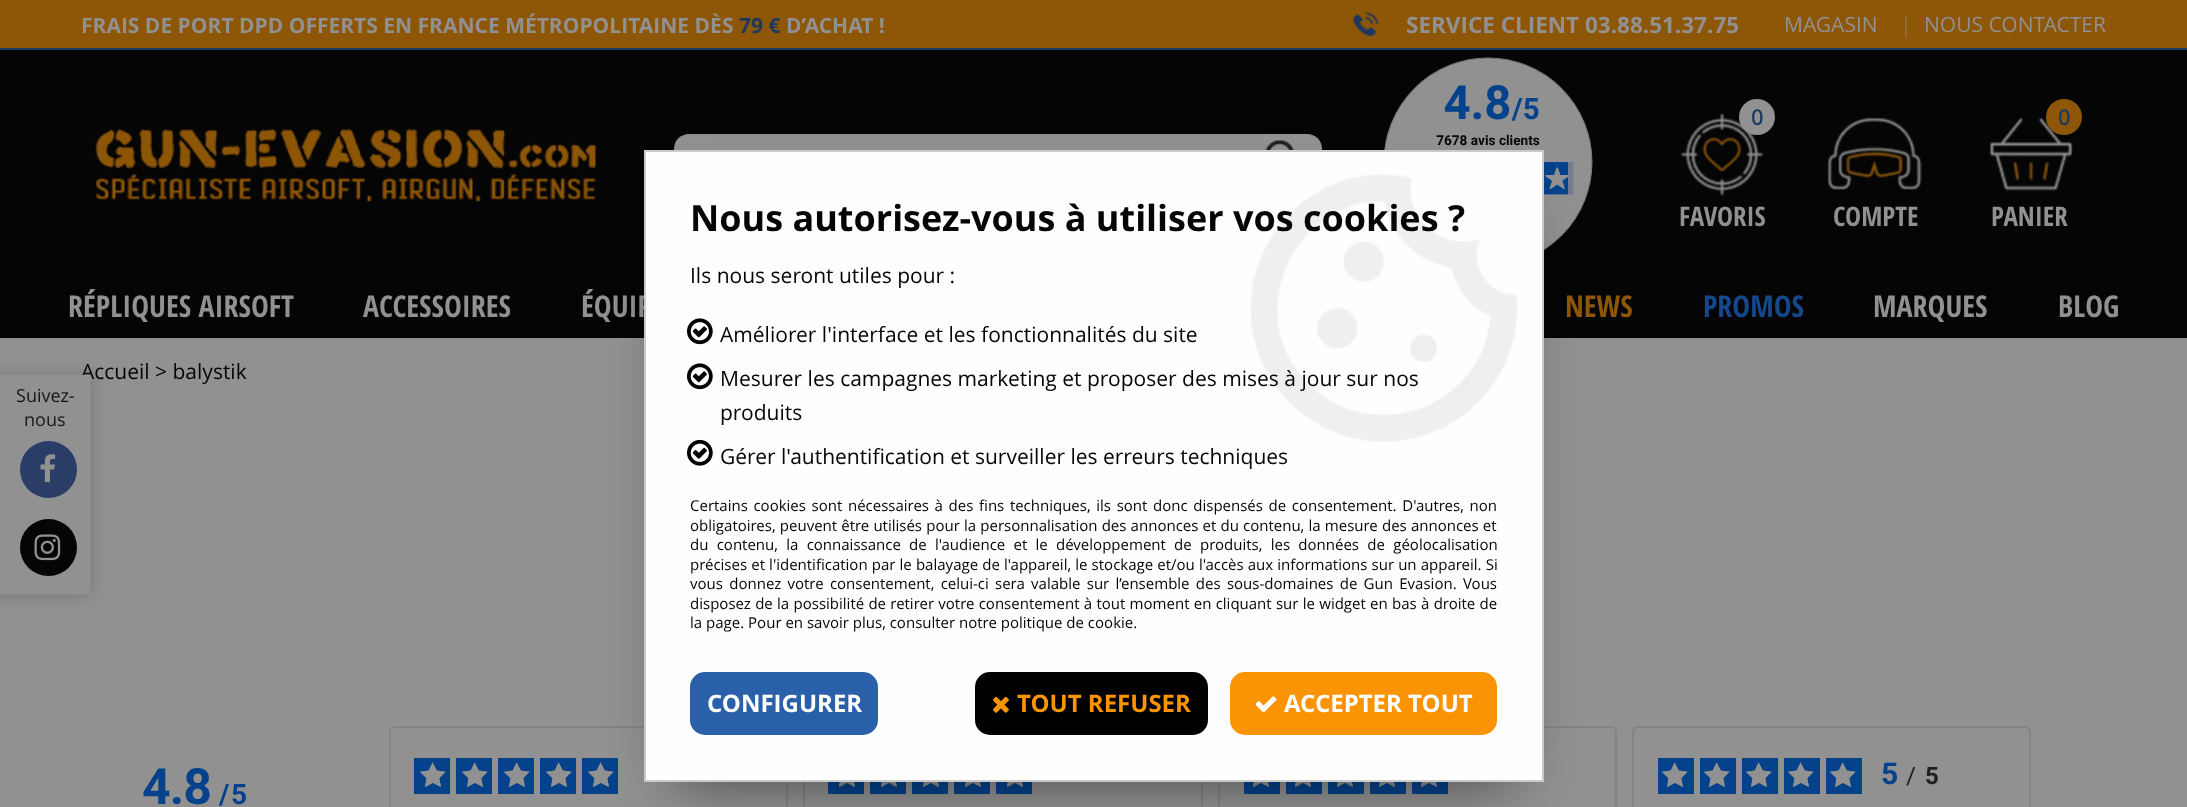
<svg xmlns="http://www.w3.org/2000/svg" width="2187" height="807" viewBox="0 0 2187 807">
  <rect width="100%" height="100%" fill="rgb(145,145,145)"/>
  <rect x="0" y="0" width="2187" height="48" fill="rgb(142,86,7)"/>
  <text x="81" y="33" font-family="Open Sans" font-size="21" font-weight="bold" fill="rgb(145,145,145)">FRAIS DE PORT DPD OFFERTS EN FRANCE MÉTROPOLITAINE DÈS</text>
  <text x="739" y="33" font-family="Open Sans" font-size="21" font-weight="bold" fill="rgb(28,57,98)">79 €</text>
  <text x="786" y="33" font-family="Open Sans" font-size="21" font-weight="bold" fill="rgb(145,145,145)">D’ACHAT !</text>
  <image x="1353" y="12" width="26" height="25" href="pic1.png"/>
  <text x="1406" y="33" font-family="Open Sans" font-size="22.5" font-weight="bold" fill="rgb(145,145,145)">SERVICE CLIENT 03.88.51.37.75</text>
  <text x="1784" y="32" font-family="Open Sans" font-size="21" fill="rgb(145,145,145)">MAGASIN</text>
  <text x="1900" y="32" font-family="Open Sans" font-size="21" fill="rgb(144,116,76)">|</text>
  <text x="1924" y="32" font-family="Open Sans" font-size="21" fill="rgb(145,145,145)">NOUS CONTACTER</text>
  <rect x="0" y="335" width="2187" height="3" fill="rgb(5,5,5)"/>
  <rect x="0" y="48" width="2187" height="2" fill="rgb(28,57,98)"/>
  <rect x="0" y="50" width="2187" height="285" fill="rgb(5,5,5)"/>
  <image x="95" y="128" width="501" height="74" href="pic2.png"/>
  <path d="M689 134H1262V192H689C680.5 192 674 185.5 674 177V149C674 140.5 680.5 134 689 134Z" fill="rgb(144,144,144)"/>
  <path d="M1262 134H1307C1315.5 134 1322 140.5 1322 149V177C1322 185.5 1315.5 192 1307 192H1262Z" fill="rgb(145,145,145)"/>
  <image x="1265" y="140" width="29" height="10" href="pic3.png"/>
  <image x="1384" y="57" width="209" height="193" href="pic4.png"/>
  <image x="1680" y="113" width="84" height="83" href="pic5.png"/>
  <circle cx="1757" cy="117" r="18" fill="rgb(145,145,145)"/>
  <text x="1751" y="125" font-family="'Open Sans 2'" font-size="21" font-weight="bold" fill="rgb(28,57,98)">0</text>
  <text x="1679" y="226" font-family="Open Sans Condensed" font-size="27" font-weight="bold" fill="rgb(145,145,145)">FAVORIS</text>
  <image x="1827" y="117" width="96" height="73" href="pic6.png"/>
  <text x="1833" y="226" font-family="Open Sans Condensed" font-size="27" font-weight="bold" fill="rgb(145,145,145)">COMPTE</text>
  <image x="1989" y="117" width="84" height="75" href="pic7.png"/>
  <circle cx="2064" cy="117" r="18" fill="rgb(142,86,7)"/>
  <text x="2058" y="125" font-family="'Open Sans 2'" font-size="21" font-weight="bold" fill="rgb(28,57,98)">0</text>
  <text x="1991" y="226" font-family="Open Sans Condensed" font-size="27" font-weight="bold" fill="rgb(145,145,145)">PANIER</text>
  <g font-family="Open Sans Condensed" font-size="30" font-weight="bold" fill="rgb(145,145,145)">
    <text x="68" y="317">RÉPLIQUES AIRSOFT</text>
    <text x="363" y="317">ACCESSOIRES</text>
    <text x="581" y="317">ÉQUIP</text>
  </g>
  <text x="1565" y="317" font-family="Open Sans Condensed" font-size="30" font-weight="bold" fill="rgb(142,86,7)">NEWS</text>
  <text x="1703" y="317" font-family="Open Sans Condensed" font-size="30" font-weight="bold" fill="rgb(20,71,139)">PROMOS</text>
  <g font-family="Open Sans Condensed" font-size="30" font-weight="bold" fill="rgb(145,145,145)">
    <text x="1873" y="317">MARQUES</text>
    <text x="2058" y="317">BLOG</text>
  </g>
  <rect x="-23" y="374" width="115" height="222" fill="rgba(5,5,5,0.15)" filter="blur(7.5px)"/>
  <text x="81" y="379" font-family="Open Sans" font-size="21" fill="rgb(5,5,5)">Accueil &gt; balystik</text>
  <rect x="0" y="375" width="90" height="219" fill="rgb(145,145,145)"/>
  <g font-family="Open Sans" font-size="18" fill="rgb(23,23,23)">
    <text x="16" y="402">Suivez-</text>
    <text x="24" y="426">nous</text>
  </g>
  <circle cx="48.5" cy="469.5" r="28.5" fill="rgb(41,61,102)"/>
  <image x="40" y="454" width="16" height="29" href="pic8.png"/>
  <circle cx="48.5" cy="547.5" r="28.5" fill="rgb(5,5,5)"/>
  <image x="34" y="534" width="27" height="27" href="pic9.png"/>
  <text x="142" y="804" font-family="Roboto" font-size="50" font-weight="bold" letter-spacing="-1" fill="rgb(5,66,139)">4.8</text>
  <g font-family="Roboto" font-size="28" font-weight="bold" letter-spacing="-1" fill="rgb(5,66,139)">
    <text x="219" y="804">/</text>
    <text x="231" y="804">5</text>
  </g>
  <rect x="390" y="727" width="397" height="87" rx="5" fill="none" stroke="rgb(132,132,132)" stroke-width="2"/>
  <rect x="414" y="758" width="36" height="36" fill="rgb(5,66,139)"/>
  <image x="420" y="762" width="26" height="25" href="pic10.png"/>
  <image x="420" y="762" width="26" height="25" href="pic11.png"/>
  <rect x="456" y="758" width="36" height="36" fill="rgb(5,66,139)"/>
  <image x="462" y="762" width="26" height="25" href="pic10.png"/>
  <image x="462" y="762" width="26" height="25" href="pic11.png"/>
  <rect x="498" y="758" width="36" height="36" fill="rgb(5,66,139)"/>
  <image x="504" y="762" width="26" height="25" href="pic10.png"/>
  <image x="504" y="762" width="26" height="25" href="pic11.png"/>
  <rect x="540" y="758" width="36" height="36" fill="rgb(5,66,139)"/>
  <image x="546" y="762" width="26" height="25" href="pic10.png"/>
  <image x="546" y="762" width="26" height="25" href="pic11.png"/>
  <rect x="582" y="758" width="36" height="36" fill="rgb(5,66,139)"/>
  <image x="588" y="762" width="26" height="25" href="pic10.png"/>
  <image x="588" y="762" width="26" height="25" href="pic11.png"/>
  <rect x="804" y="727" width="398" height="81" fill="none" stroke="rgb(132,132,132)" stroke-width="2"/>
  <rect x="828" y="782" width="36" height="12" fill="rgb(5,66,139)"/>
  <image x="839" y="782" width="16" height="5" href="pic12.png"/>
  <image x="839" y="782" width="16" height="5" href="pic13.png"/>
  <rect x="870" y="782" width="36" height="12" fill="rgb(5,66,139)"/>
  <image x="881" y="782" width="16" height="5" href="pic12.png"/>
  <image x="881" y="782" width="16" height="5" href="pic13.png"/>
  <rect x="912" y="782" width="36" height="12" fill="rgb(5,66,139)"/>
  <image x="923" y="782" width="16" height="5" href="pic12.png"/>
  <image x="923" y="782" width="16" height="5" href="pic13.png"/>
  <rect x="954" y="782" width="36" height="12" fill="rgb(5,66,139)"/>
  <image x="965" y="782" width="16" height="5" href="pic12.png"/>
  <image x="965" y="782" width="16" height="5" href="pic13.png"/>
  <rect x="996" y="782" width="36" height="12" fill="rgb(5,66,139)"/>
  <image x="1007" y="782" width="16" height="5" href="pic12.png"/>
  <image x="1007" y="782" width="16" height="5" href="pic13.png"/>
  <rect x="1219" y="727" width="397" height="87" rx="5" fill="none" stroke="rgb(132,132,132)" stroke-width="2"/>
  <rect x="1244" y="782" width="36" height="12" fill="rgb(5,66,139)"/>
  <image x="1253" y="782" width="16" height="5" href="pic12.png"/>
  <image x="1253" y="782" width="16" height="5" href="pic13.png"/>
  <rect x="1286" y="782" width="36" height="12" fill="rgb(5,66,139)"/>
  <image x="1295" y="782" width="16" height="5" href="pic12.png"/>
  <image x="1295" y="782" width="16" height="5" href="pic13.png"/>
  <rect x="1328" y="782" width="36" height="12" fill="rgb(5,66,139)"/>
  <image x="1337" y="782" width="16" height="5" href="pic12.png"/>
  <image x="1337" y="782" width="16" height="5" href="pic13.png"/>
  <rect x="1370" y="782" width="36" height="12" fill="rgb(5,66,139)"/>
  <image x="1379" y="782" width="16" height="5" href="pic12.png"/>
  <image x="1379" y="782" width="16" height="5" href="pic13.png"/>
  <rect x="1412" y="782" width="36" height="12" fill="rgb(5,66,139)"/>
  <image x="1421" y="782" width="16" height="5" href="pic12.png"/>
  <image x="1421" y="782" width="16" height="5" href="pic13.png"/>
  <rect x="1633" y="727" width="397" height="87" rx="5" fill="none" stroke="rgb(132,132,132)" stroke-width="2"/>
  <rect x="1658" y="758" width="36" height="36" fill="rgb(5,66,139)"/>
  <image x="1662" y="762" width="26" height="25" href="pic10.png"/>
  <image x="1662" y="762" width="26" height="25" href="pic11.png"/>
  <rect x="1700" y="758" width="36" height="36" fill="rgb(5,66,139)"/>
  <image x="1704" y="762" width="26" height="25" href="pic10.png"/>
  <image x="1704" y="762" width="26" height="25" href="pic11.png"/>
  <rect x="1742" y="758" width="36" height="36" fill="rgb(5,66,139)"/>
  <image x="1746" y="762" width="26" height="25" href="pic10.png"/>
  <image x="1746" y="762" width="26" height="25" href="pic11.png"/>
  <rect x="1784" y="758" width="36" height="36" fill="rgb(5,66,139)"/>
  <image x="1788" y="762" width="26" height="25" href="pic10.png"/>
  <image x="1788" y="762" width="26" height="25" href="pic11.png"/>
  <rect x="1826" y="758" width="36" height="36" fill="rgb(5,66,139)"/>
  <image x="1830" y="762" width="26" height="25" href="pic10.png"/>
  <image x="1830" y="762" width="26" height="25" href="pic11.png"/>
  <text x="1881" y="784" font-family="Roboto" font-size="30" font-weight="bold" letter-spacing="1" fill="rgb(5,66,139)">5</text>
  <text x="1906" y="784" font-family="Roboto" font-size="24" letter-spacing="1" fill="rgb(30,30,30)">/</text>
  <text x="1925" y="784" font-family="Roboto" font-size="24" font-weight="bold" letter-spacing="1" fill="rgb(30,30,30)">5</text>
  <rect x="674" y="210" width="840" height="572" fill="rgba(0,0,0,0.5)" filter="blur(30px)"/>
  <rect x="646" y="152" width="896" height="628" fill="rgb(254,254,254)"/>
  <image x="1250" y="174" width="268" height="268" href="pic14.png"/>
  <rect x="645" y="151" width="898" height="630" fill="none" stroke="rgb(202,202,202)" stroke-width="2"/>
  <text x="690" y="231" font-family="Open Sans" font-size="36" font-weight="bold" fill="rgb(5,5,5)">Nous autorisez-vous à utiliser vos cookies ?</text>
  <text x="690" y="283" font-family="Open Sans" font-size="21" fill="rgb(5,5,5)">Ils nous seront utiles pour :</text>
  <image x="687" y="318" width="26" height="27" href="pic15.png"/>
  <text x="720" y="342" font-family="Open Sans" font-size="21" fill="rgb(5,5,5)">Améliorer l'interface et les fonctionnalités du site</text>
  <image x="687" y="363" width="26" height="27" href="pic15.png"/>
  <g font-family="Open Sans" font-size="21" fill="rgb(5,5,5)">
    <text>
      <tspan x="720" y="386">Mesurer les campagnes marketing et proposer des mises à jour sur nos</tspan>
      <tspan x="720" y="420">produits</tspan>
    </text>
  </g>
  <image x="687" y="439" width="26" height="27" href="pic16.png"/>
  <text x="720" y="464" font-family="Open Sans" font-size="21" fill="rgb(5,5,5)">Gérer l'authentification et surveiller les erreurs techniques</text>
  <g font-family="Open Sans" font-size="15" fill="rgb(5,5,5)">
    <text>
      <tspan x="690" y="511" word-spacing="1.75">Certains cookies sont nécessaires à des fins techniques, ils sont donc dispensés de consentement. D'autres, non</tspan>
      <tspan x="690" y="531" word-spacing="0.3">obligatoires, peuvent être utilisés pour la personnalisation des annonces et du contenu, la mesure des annonces et</tspan>
      <tspan x="690" y="550" word-spacing="4.4">du contenu, la connaissance de l'audience et le développement de produits, les données de géolocalisation</tspan>
      <tspan x="690" y="570" word-spacing="0.25">précises et l'identification par le balayage de l'appareil, le stockage et/ou l'accès aux informations sur un appareil. Si</tspan>
      <tspan x="690" y="589" word-spacing="2.4">vous donnez votre consentement, celui-ci sera valable sur l’ensemble des sous-domaines de Gun Evasion. Vous</tspan>
      <tspan x="690" y="609" word-spacing="0.4">disposez de la possibilité de retirer votre consentement à tout moment en cliquant sur le widget en bas à droite de</tspan>
      <tspan x="690" y="628">la page. Pour en savoir plus, consulter notre politique de cookie.</tspan>
    </text>
  </g>
  <rect x="691" y="673" width="186" height="61" rx="14" fill="rgb(42,96,170)" stroke="rgb(42,96,170)" stroke-width="2"/>
  <text x="707" y="712" font-family="Open Sans" font-size="24" font-weight="bold" fill="rgb(255,255,255)">CONFIGURER</text>
  <rect x="976" y="673" width="231" height="61" rx="14" fill="rgb(0,0,0)" stroke="rgb(0,0,0)" stroke-width="2"/>
  <image x="993" y="696" width="16" height="17" href="pic17.png"/>
  <text x="1017" y="712" font-family="Open Sans" font-size="24" font-weight="bold" fill="rgb(250,148,4)">TOUT REFUSER</text>
  <rect x="1231" y="673" width="265" height="61" rx="14" fill="rgb(250,148,4)" stroke="rgb(250,148,4)" stroke-width="2"/>
  <image x="1255" y="696" width="22" height="17" href="pic18.png"/>
  <text x="1284" y="712" font-family="Open Sans" font-size="24" font-weight="bold" fill="rgb(255,255,255)">ACCEPTER TOUT</text>
</svg>
